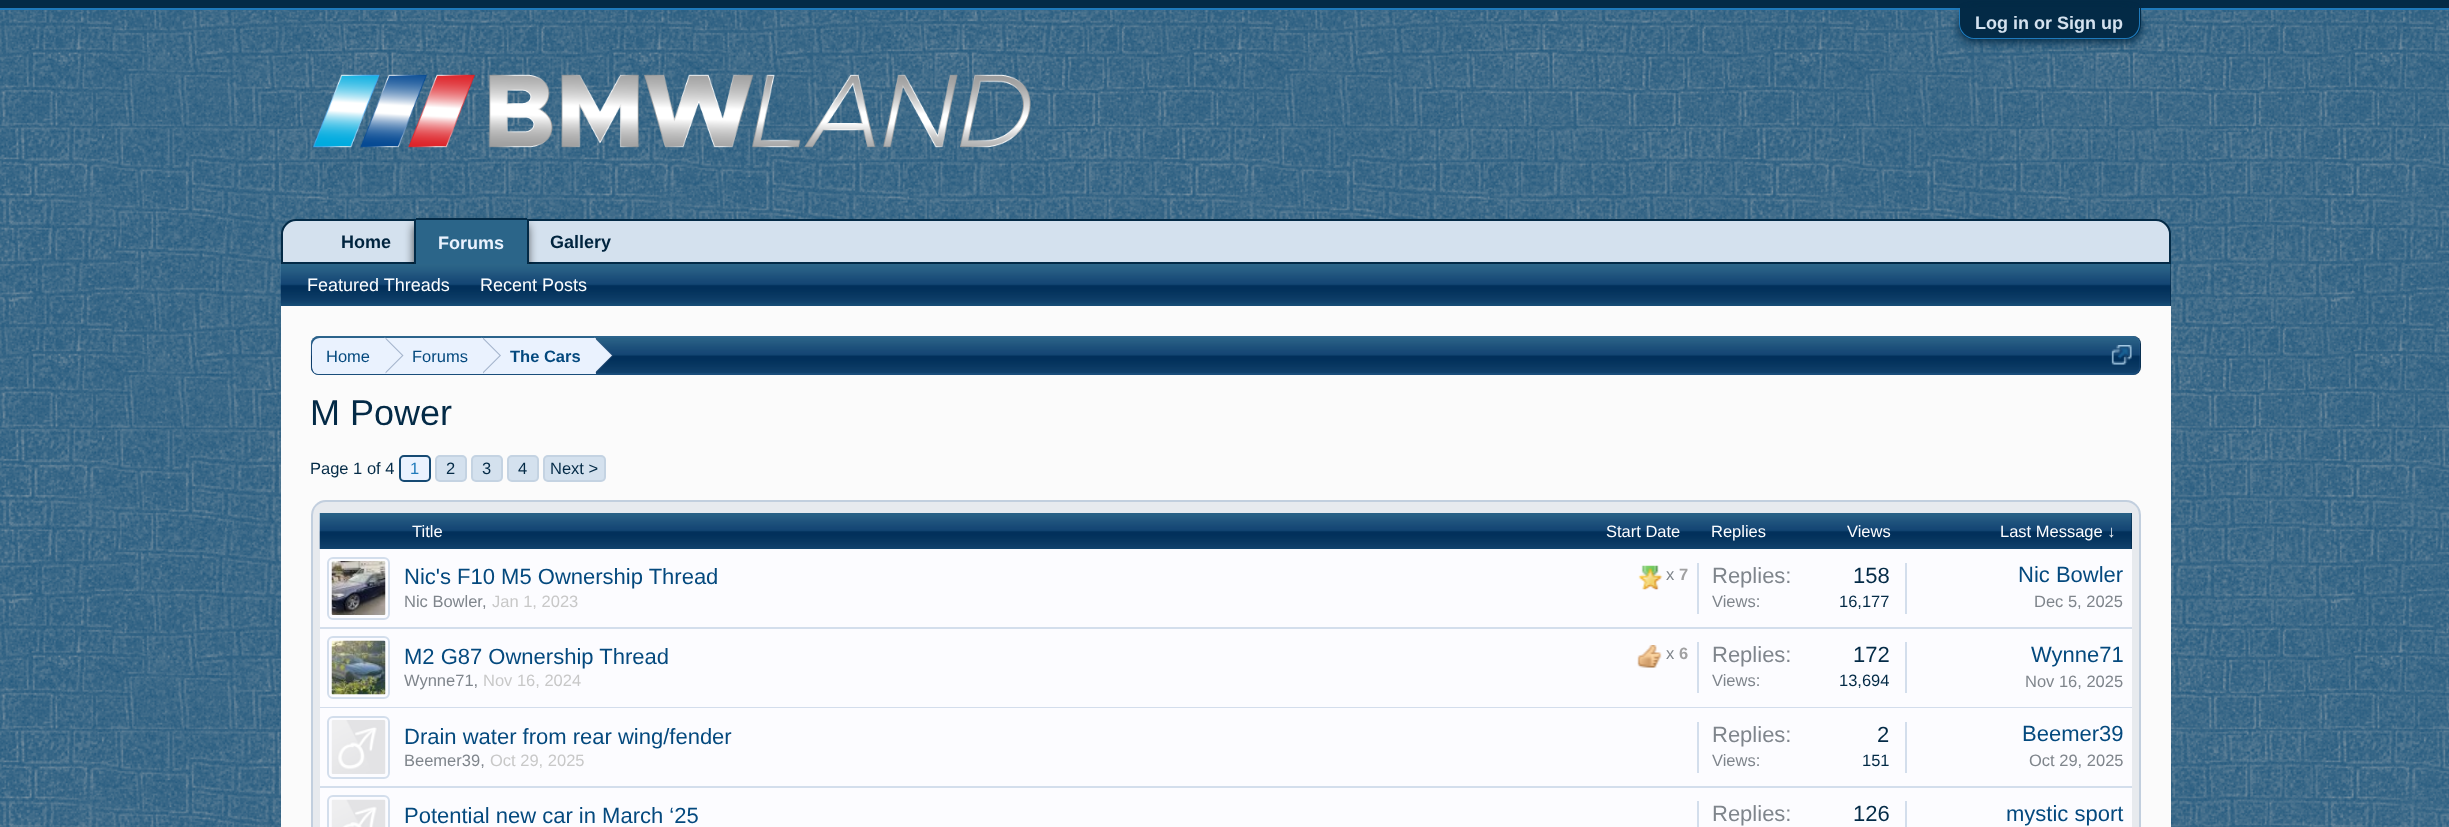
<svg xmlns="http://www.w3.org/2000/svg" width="2449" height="827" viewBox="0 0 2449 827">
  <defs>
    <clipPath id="clip1"><rect x="312" y="338" width="1827" height="36" rx="6"/></clipPath>
  </defs>
  <rect width="100%" height="100%" fill="rgb(0,68,114)"/>
  <image x="0" y="306" width="2449" height="521" href="pic1.png"/>
  <rect x="0" y="0" width="2449" height="8" fill="rgb(3,42,70)"/>
  <rect x="0" y="8" width="2449" height="2" fill="rgb(31,122,187)"/>
  <image x="0" y="10" width="2449" height="296" href="pic2.png"/>
  <rect x="1959" y="11" width="182" height="31" rx="15" fill="rgb(3,42,70)" filter="blur(4px)"/>
  <path d="M1959 8H2141V24C2141 32.5 2134.5 39 2126 39H1974C1965.5 39 1959 32.5 1959 24Z" fill="rgb(3,42,70)"/>
  <path d="M1959 8H2140V24C2140 32 2134 39 2126 39H1974C1966 39 1959 32 1959 24ZM1960 8H2139V24C2139 31 2133 38 2126 38H1974C1967 38 1960 31 1960 24Z" fill="rgb(31,122,187)" fill-rule="evenodd"/>
  <text x="1975" y="29" font-family="Liberation Sans" font-size="18" font-weight="bold" fill="rgb(212,225,238)">Log in or Sign up</text>
  <image x="313" y="74" width="718" height="74" href="pic3.png"/>
  <path d="M296 220H2156C2163.5 220 2170 226.5 2170 234V263H282V234C282 226.5 288.5 220 296 220Z" fill="rgb(212,225,238)" stroke="rgb(3,42,70)" stroke-width="2"/>
  <g font-family="Liberation Sans" font-size="18" font-weight="bold" fill="rgb(0,36,62)">
    <text x="341" y="248">Home</text>
    <text x="550" y="248">Gallery</text>
  </g>
  <rect x="414" y="225" width="114" height="47" rx="3" fill="rgba(0,0,0,0.7)" filter="blur(5px)"/>
  <path d="M417 218H525C526.5 218 528 219.5 528 221V264H414V221C414 219.5 415.5 218 417 218Z" fill="rgb(43,101,137)"/>
  <rect x="416" y="218" width="111" height="2" fill="rgb(3,42,70)"/>
  <rect x="527" y="219" width="2" height="45" fill="rgb(3,42,70)"/>
  <rect x="414" y="219" width="2" height="45" fill="rgb(3,42,70)"/>
  <text x="438" y="249" font-family="Liberation Sans" font-size="18" font-weight="bold" fill="rgb(234,242,254)">Forums</text>
  <rect x="281" y="264" width="1890" height="42" fill="rgb(0,36,62)"/>
  <image x="280" y="264" width="1891" height="42" href="pic4.png"/>
  <g font-family="Liberation Sans" font-size="18" fill="rgb(252,253,255)">
    <text x="307" y="291">Featured Threads</text>
    <text x="480" y="291">Recent Posts</text>
  </g>
  <rect x="281" y="306" width="1890" height="521" fill="rgb(251,251,251)"/>
  <rect x="311" y="336" width="1830" height="39" rx="8" fill="rgb(0,36,62)"/>
  <image x="310" y="336" width="1830" height="39" href="pic5.png"/>
  <rect x="312" y="337" width="1828" height="37" rx="7" fill="none" stroke="rgba(49,102,158,0.2)" stroke-width="2"/>
  <g clip-path="url(#clip1)">
    <path d="M320 338H386V375H320C315.5 375 312 371.5 312 367V346C312 341.5 315.5 338 320 338Z" fill="rgb(234,242,254)"/>
  </g>
  <text x="326" y="362" font-family="Liberation Sans" font-size="16.5" fill="rgb(4,73,126)">Home</text>
  <rect x="386" y="338" width="210" height="36" fill="rgb(234,242,254)"/>
  <path d="M385.5 373.5V337.5L403.5 355.5Z" fill="rgb(164,180,204)"/>
  <path d="M384 373.5V337.5L402 355.5Z" fill="rgb(234,242,254)"/>
  <text x="412" y="362" font-family="Liberation Sans" font-size="16.5" fill="rgb(4,73,126)">Forums</text>
  <path d="M483 373.5V337.5L501 355.5Z" fill="rgb(164,180,204)"/>
  <path d="M481.5 373.5V337.5L499.5 355.5Z" fill="rgb(234,242,254)"/>
  <text x="510" y="362" font-family="Liberation Sans" font-size="16.5" font-weight="bold" fill="rgb(4,73,126)">The Cars</text>
  <path d="M595.5 373.5V337.5L613.5 355.5Z" fill="rgba(58,88,128,0.4)"/>
  <path d="M594 373.5V337.5L612 355.5Z" fill="rgb(234,242,254)"/>
  <image x="2111" y="345" width="21" height="20" href="pic6.png"/>
  <text x="310" y="425" font-family="Liberation Sans" font-size="36" fill="rgb(3,42,70)">M Power</text>
  <text x="310" y="474" font-family="Liberation Sans" font-size="16.5" fill="rgb(3,42,70)">Page 1 of 4</text>
  <rect x="400" y="456" width="30" height="25" rx="4" fill="rgb(234,242,254)" stroke="rgb(22,74,115)" stroke-width="2"/>
  <text x="410" y="474" font-family="Liberation Sans" font-size="16.5" fill="rgb(31,122,187)">1</text>
  <rect x="435" y="455" width="32" height="27" rx="5" fill="rgb(212,225,238)"/>
  <rect x="436" y="456" width="30" height="25" rx="4" fill="none" stroke="rgba(58,88,128,0.1)" stroke-width="2"/>
  <text x="446" y="474" font-family="Liberation Sans" font-size="16.5" fill="rgb(3,42,70)">2</text>
  <rect x="471" y="455" width="32" height="27" rx="5" fill="rgb(212,225,238)"/>
  <rect x="472" y="456" width="30" height="25" rx="4" fill="none" stroke="rgba(58,88,128,0.1)" stroke-width="2"/>
  <text x="482" y="474" font-family="Liberation Sans" font-size="16.5" fill="rgb(3,42,70)">3</text>
  <rect x="507" y="455" width="32" height="27" rx="5" fill="rgb(212,225,238)"/>
  <rect x="508" y="456" width="30" height="25" rx="4" fill="none" stroke="rgba(58,88,128,0.1)" stroke-width="2"/>
  <text x="518" y="474" font-family="Liberation Sans" font-size="16.5" fill="rgb(3,42,70)">4</text>
  <rect x="543" y="455" width="63" height="27" rx="5" fill="rgb(212,225,238)"/>
  <rect x="544" y="456" width="61" height="25" rx="4" fill="none" stroke="rgba(58,88,128,0.1)" stroke-width="2"/>
  <text x="550" y="474" font-family="Liberation Sans" font-size="16.5" fill="rgb(3,42,70)">Next &gt;</text>
  <rect x="311" y="500" width="1830" height="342" rx="15" fill="rgb(231,234,238)"/>
  <rect x="312" y="501" width="1828" height="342" rx="14" fill="none" stroke="rgba(49,102,158,0.2)" stroke-width="2"/>
  <rect x="320" y="513" width="1812" height="36" fill="rgb(0,36,62)"/>
  <image x="319" y="513" width="1813" height="36" href="pic7.png"/>
  <g font-family="Liberation Sans" font-size="16.5" fill="rgb(252,253,255)">
    <text x="412" y="537">Title</text>
    <text x="1606" y="537">Start Date</text>
    <text x="1711" y="537">Replies</text>
    <text x="1847" y="537">Views</text>
    <text x="2000" y="537">Last Message ↓</text>
  </g>
  <rect x="320" y="549" width="1812" height="78" fill="rgb(252,252,255)"/>
  <rect x="320" y="627" width="1812" height="2" fill="rgb(211,222,236)"/>
  <rect x="328" y="558" width="61" height="61" rx="5" fill="none" stroke="rgb(211,222,236)" stroke-width="2"/>
  <image x="331" y="561" width="55" height="54" href="pic8.png"/>
  <text x="404" y="584" font-family="Liberation Sans" font-size="22" fill="rgb(4,73,126)">Nic's F10 M5 Ownership Thread</text>
  <image x="1638" y="565" width="25" height="25" href="pic9.png"/>
  <text x="1666" y="580" font-family="Liberation Sans" font-size="16.5" fill="rgb(127,133,140)">x</text>
  <text x="1679" y="580" font-family="Liberation Sans" font-size="16.5" font-weight="bold" fill="rgb(161,161,162)">7</text>
  <text x="404" y="607" font-family="Liberation Sans" font-size="16.5" fill="rgb(127,133,140)">Nic Bowler,</text>
  <text x="492" y="607" font-family="Liberation Sans" font-size="16.5" fill="rgb(200,200,200)">Jan 1, 2023</text>
  <rect x="1905" y="563" width="2" height="51" fill="rgb(211,222,236)"/>
  <rect x="1697" y="563" width="2" height="51" fill="rgb(211,222,236)"/>
  <text x="1712" y="583" font-family="Liberation Sans" font-size="22" fill="rgb(127,133,140)">Replies:</text>
  <text x="1853" y="583" font-family="Liberation Sans" font-size="22" fill="rgb(3,42,70)">158</text>
  <text x="1712" y="607" font-family="Liberation Sans" font-size="16.5" fill="rgb(127,133,140)">Views:</text>
  <text x="1839" y="607" font-family="Liberation Sans" font-size="16.5" fill="rgb(3,42,70)">16,177</text>
  <text x="2018" y="582" font-family="Liberation Sans" font-size="22" fill="rgb(4,73,126)">Nic Bowler</text>
  <text x="2034" y="607" font-family="Liberation Sans" font-size="16.5" fill="rgb(127,133,140)">Dec 5, 2025</text>
  <rect x="320" y="629" width="1812" height="157" fill="rgb(252,252,255)"/>
  <rect x="320" y="707" width="1812" height="1" fill="rgba(49,102,158,0.2)"/>
  <rect x="328" y="637" width="61" height="61" rx="5" fill="none" stroke="rgb(211,222,236)" stroke-width="2"/>
  <image x="331" y="640" width="55" height="55" href="pic10.png"/>
  <text x="404" y="664" font-family="Liberation Sans" font-size="22" fill="rgb(4,73,126)">M2 G87 Ownership Thread</text>
  <image x="1637" y="645" width="25" height="23" href="pic11.png"/>
  <text x="1666" y="659" font-family="Liberation Sans" font-size="16.5" fill="rgb(127,133,140)">x</text>
  <text x="1679" y="659" font-family="Liberation Sans" font-size="16.5" font-weight="bold" fill="rgb(161,161,162)">6</text>
  <text x="404" y="686" font-family="Liberation Sans" font-size="16.5" fill="rgb(127,133,140)">Wynne71,</text>
  <text x="483" y="686" font-family="Liberation Sans" font-size="16.5" fill="rgb(200,200,200)">Nov 16, 2024</text>
  <rect x="1905" y="642" width="2" height="51" fill="rgb(211,222,236)"/>
  <rect x="1697" y="642" width="2" height="51" fill="rgb(211,222,236)"/>
  <text x="1712" y="662" font-family="Liberation Sans" font-size="22" fill="rgb(127,133,140)">Replies:</text>
  <text x="1853" y="662" font-family="Liberation Sans" font-size="22" fill="rgb(3,42,70)">172</text>
  <text x="1712" y="686" font-family="Liberation Sans" font-size="16.5" fill="rgb(127,133,140)">Views:</text>
  <text x="1839" y="686" font-family="Liberation Sans" font-size="16.5" fill="rgb(3,42,70)">13,694</text>
  <text x="2031" y="662" font-family="Liberation Sans" font-size="22" fill="rgb(4,73,126)">Wynne71</text>
  <text x="2025" y="687" font-family="Liberation Sans" font-size="16.5" fill="rgb(127,133,140)">Nov 16, 2025</text>
  <rect x="320" y="786" width="1812" height="2" fill="rgb(211,222,236)"/>
  <rect x="328" y="717" width="61" height="61" rx="5" fill="none" stroke="rgb(211,222,236)" stroke-width="2"/>
  <image x="331" y="720" width="55" height="54" href="pic12.png"/>
  <text x="404" y="744" font-family="Liberation Sans" font-size="22" fill="rgb(4,73,126)">Drain water from rear wing/fender</text>
  <text x="404" y="766" font-family="Liberation Sans" font-size="16.5" fill="rgb(127,133,140)">Beemer39,</text>
  <text x="490" y="766" font-family="Liberation Sans" font-size="16.5" fill="rgb(200,200,200)">Oct 29, 2025</text>
  <rect x="1905" y="722" width="2" height="51" fill="rgb(211,222,236)"/>
  <rect x="1697" y="722" width="2" height="51" fill="rgb(211,222,236)"/>
  <text x="1712" y="742" font-family="Liberation Sans" font-size="22" fill="rgb(127,133,140)">Replies:</text>
  <text x="1877" y="742" font-family="Liberation Sans" font-size="22" fill="rgb(3,42,70)">2</text>
  <text x="1712" y="766" font-family="Liberation Sans" font-size="16.5" fill="rgb(127,133,140)">Views:</text>
  <text x="1862" y="766" font-family="Liberation Sans" font-size="16.5" fill="rgb(3,42,70)">151</text>
  <text x="2022" y="741" font-family="Liberation Sans" font-size="22" fill="rgb(4,73,126)">Beemer39</text>
  <text x="2029" y="766" font-family="Liberation Sans" font-size="16.5" fill="rgb(127,133,140)">Oct 29, 2025</text>
  <rect x="320" y="788" width="1812" height="39" fill="rgb(252,252,255)"/>
  <rect x="328" y="796" width="61" height="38" rx="5" fill="none" stroke="rgb(211,222,236)" stroke-width="2"/>
  <image x="331" y="799" width="55" height="28" href="pic13.png"/>
  <text x="404" y="823" font-family="Liberation Sans" font-size="22" fill="rgb(4,73,126)">Potential new car in March ‘25</text>
  <rect x="1905" y="801" width="2" height="26" fill="rgb(211,222,236)"/>
  <rect x="1697" y="801" width="2" height="26" fill="rgb(211,222,236)"/>
  <text x="1712" y="821" font-family="Liberation Sans" font-size="22" fill="rgb(127,133,140)">Replies:</text>
  <text x="1853" y="821" font-family="Liberation Sans" font-size="22" fill="rgb(3,42,70)">126</text>
  <text x="2006" y="821" font-family="Liberation Sans" font-size="22" fill="rgb(4,73,126)">mystic sport</text>
</svg>
